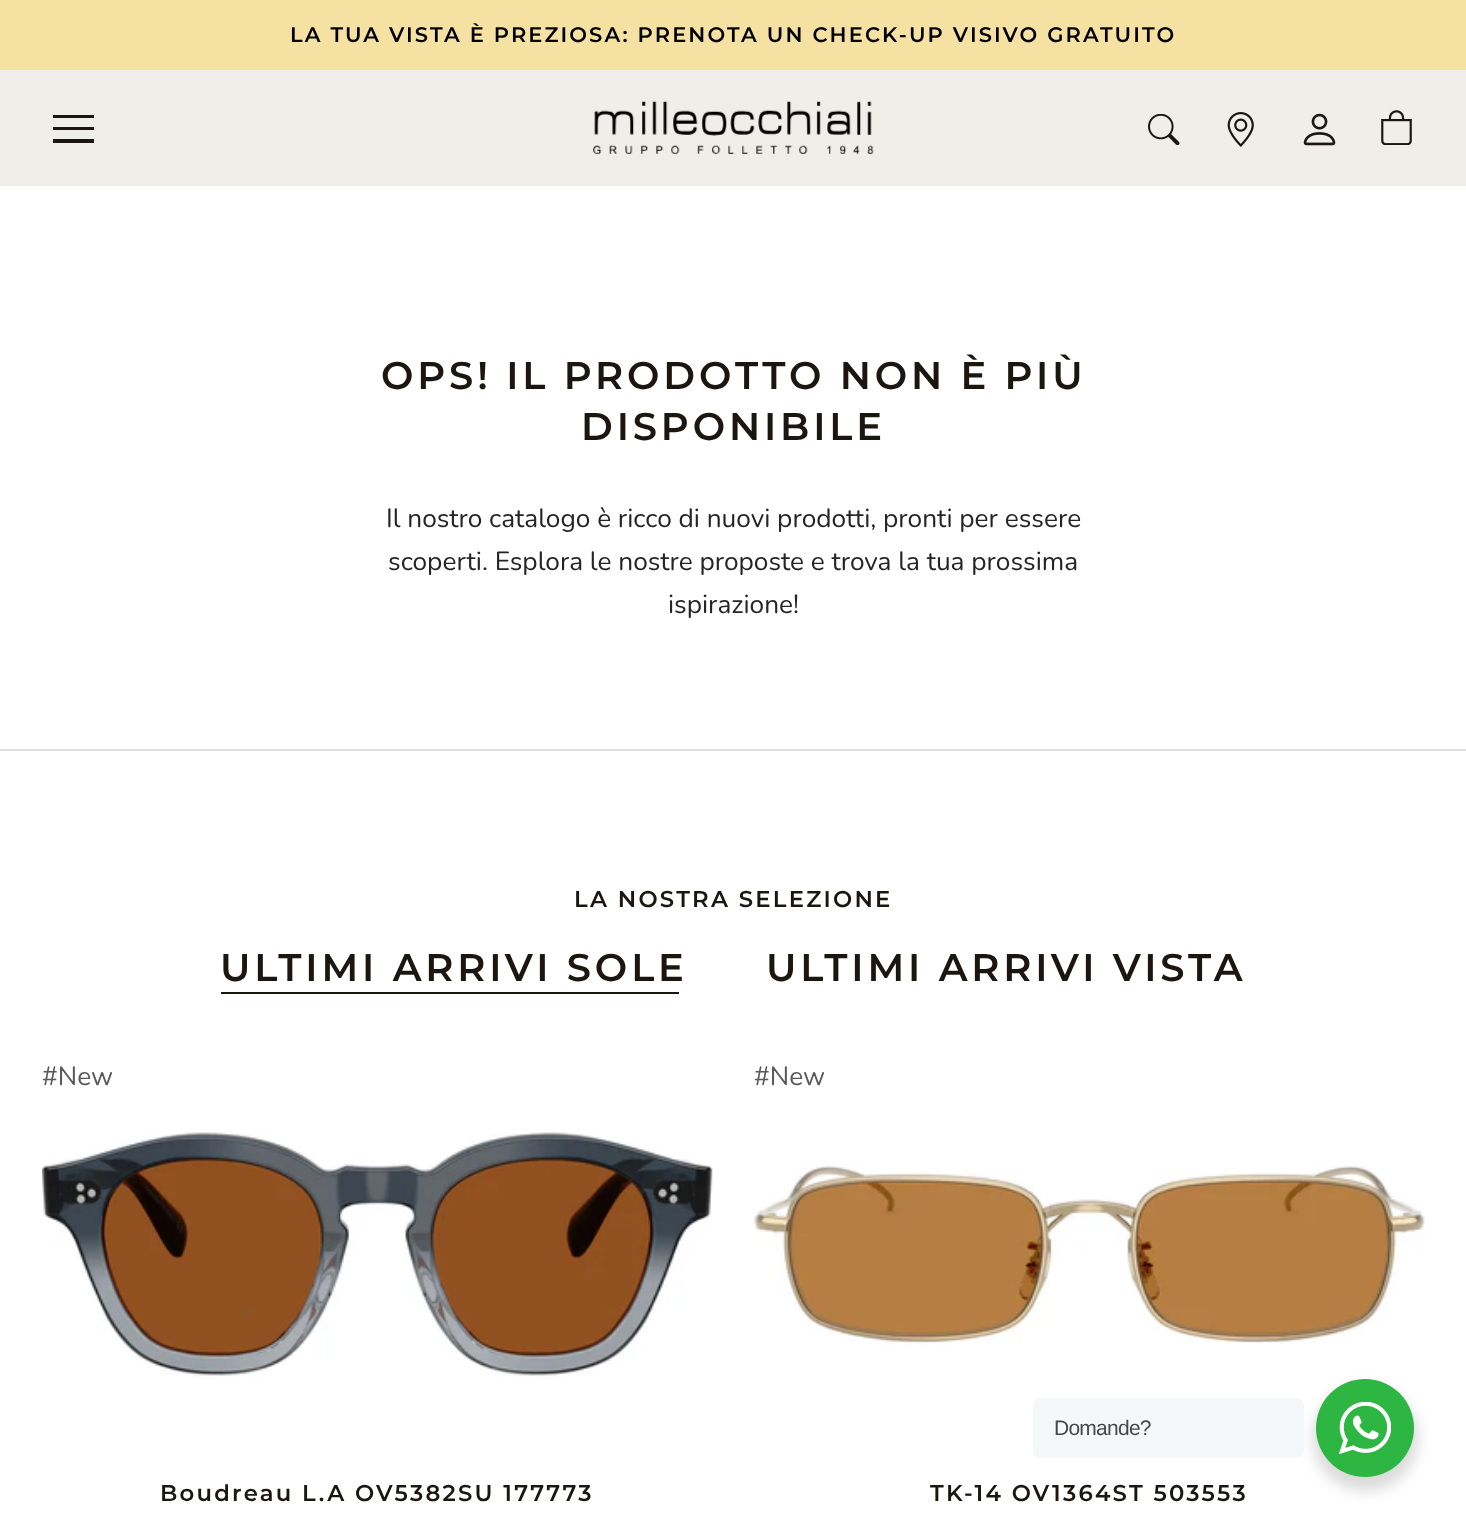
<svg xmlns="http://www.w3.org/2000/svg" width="1466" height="1528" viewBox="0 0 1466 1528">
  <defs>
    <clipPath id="clip1"><rect x="53" y="114" width="42" height="30"/></clipPath>
  </defs>
  <rect width="100%" height="100%" fill="rgb(255,255,255)"/>
  <rect x="0" y="0" width="1466" height="70" fill="rgb(245,225,162)"/>
  <text x="290" y="42" font-family="Montserrat" font-size="21" font-weight="600" letter-spacing="2.1" fill="rgb(0,0,0)">LA TUA VISTA È PREZIOSA: PRENOTA UN CHECK-UP VISIVO GRATUITO</text>
  <rect x="0" y="70" width="1466" height="116" fill="rgb(240,238,233)"/>
  <g clip-path="url(#clip1)">
    <path d="M52 143V139H94V143ZM52 127H94V130H52ZM52 115H94V118H52Z" fill="rgb(27,22,16)"/>
  </g>
  <image x="593" y="101" width="281" height="53" href="pic1.png"/>
  <image x="1148" y="114" width="32" height="31" href="pic2.png"/>
  <image x="1227" y="112" width="27" height="35" href="pic3.png"/>
  <image x="1303" y="113" width="33" height="33" href="pic4.png"/>
  <image x="1381" y="110" width="31" height="35" href="pic5.png"/>
  <g font-family="Montserrat" font-size="38.5" font-weight="600" letter-spacing="3.85" fill="rgb(27,22,16)">
    <text x="381" y="389">OPS! IL PRODOTTO NON È PIÙ</text>
    <text x="581" y="440">DISPONIBILE</text>
  </g>
  <g font-family="Nunito" font-size="26.25" fill="rgb(37,37,37)">
    <text x="386" y="527">Il nostro catalogo è ricco di nuovi prodotti, pronti per essere</text>
    <text x="388" y="570">scoperti. Esplora le nostre proposte e trova la tua prossima</text>
    <text x="668" y="613">ispirazione!</text>
  </g>
  <rect x="0" y="749" width="1466" height="2" fill="rgb(222,222,222)"/>
  <text x="574" y="907" font-family="Montserrat" font-size="22.75" font-weight="600" letter-spacing="2.25" fill="rgb(27,22,16)">LA NOSTRA SELEZIONE</text>
  <text x="220" y="981" font-family="Montserrat" font-size="38.5" font-weight="600" letter-spacing="3.85" fill="rgb(27,22,16)">ULTIMI ARRIVI SOLE</text>
  <rect x="221" y="992" width="458" height="2" fill="rgb(27,22,16)"/>
  <text x="766" y="981" font-family="Montserrat" font-size="38.5" font-weight="600" letter-spacing="3.85" fill="rgb(27,22,16)">ULTIMI ARRIVI VISTA</text>
  <text x="42" y="1085" font-family="Nunito" font-size="26.25" fill="rgb(89,89,89)">#New</text>
  <image x="42" y="1132" width="671" height="248" href="pic6.png"/>
  <text x="160" y="1501" font-family="Montserrat" font-size="22.75" font-weight="600" letter-spacing="2.25" fill="rgb(27,22,16)">Boudreau L.A OV5382SU 177773</text>
  <text x="754" y="1085" font-family="Nunito" font-size="26.25" fill="rgb(89,89,89)">#New</text>
  <image x="754" y="1165" width="671" height="180" href="pic7.png"/>
  <text x="930" y="1501" font-family="Montserrat" font-size="22.75" font-weight="600" letter-spacing="2.25" fill="rgb(27,22,16)">TK-14 OV1364ST 503553</text>
  <rect x="1313" y="1386" width="105" height="105" rx="52.5" fill="rgba(0,0,0,0.14)" filter="blur(7px)"/>
  <rect x="1033" y="1398" width="271" height="60" rx="7" fill="rgb(245,247,249)"/>
  <text x="1054" y="1435" font-family="Liberation Sans" font-size="21" letter-spacing="-0.75" fill="rgb(67,71,78)">Domande?</text>
  <circle cx="1365" cy="1428" r="49" fill="rgb(45,183,66)"/>
  <image x="1339" y="1402" width="52" height="52" href="pic8.png"/>
</svg>
